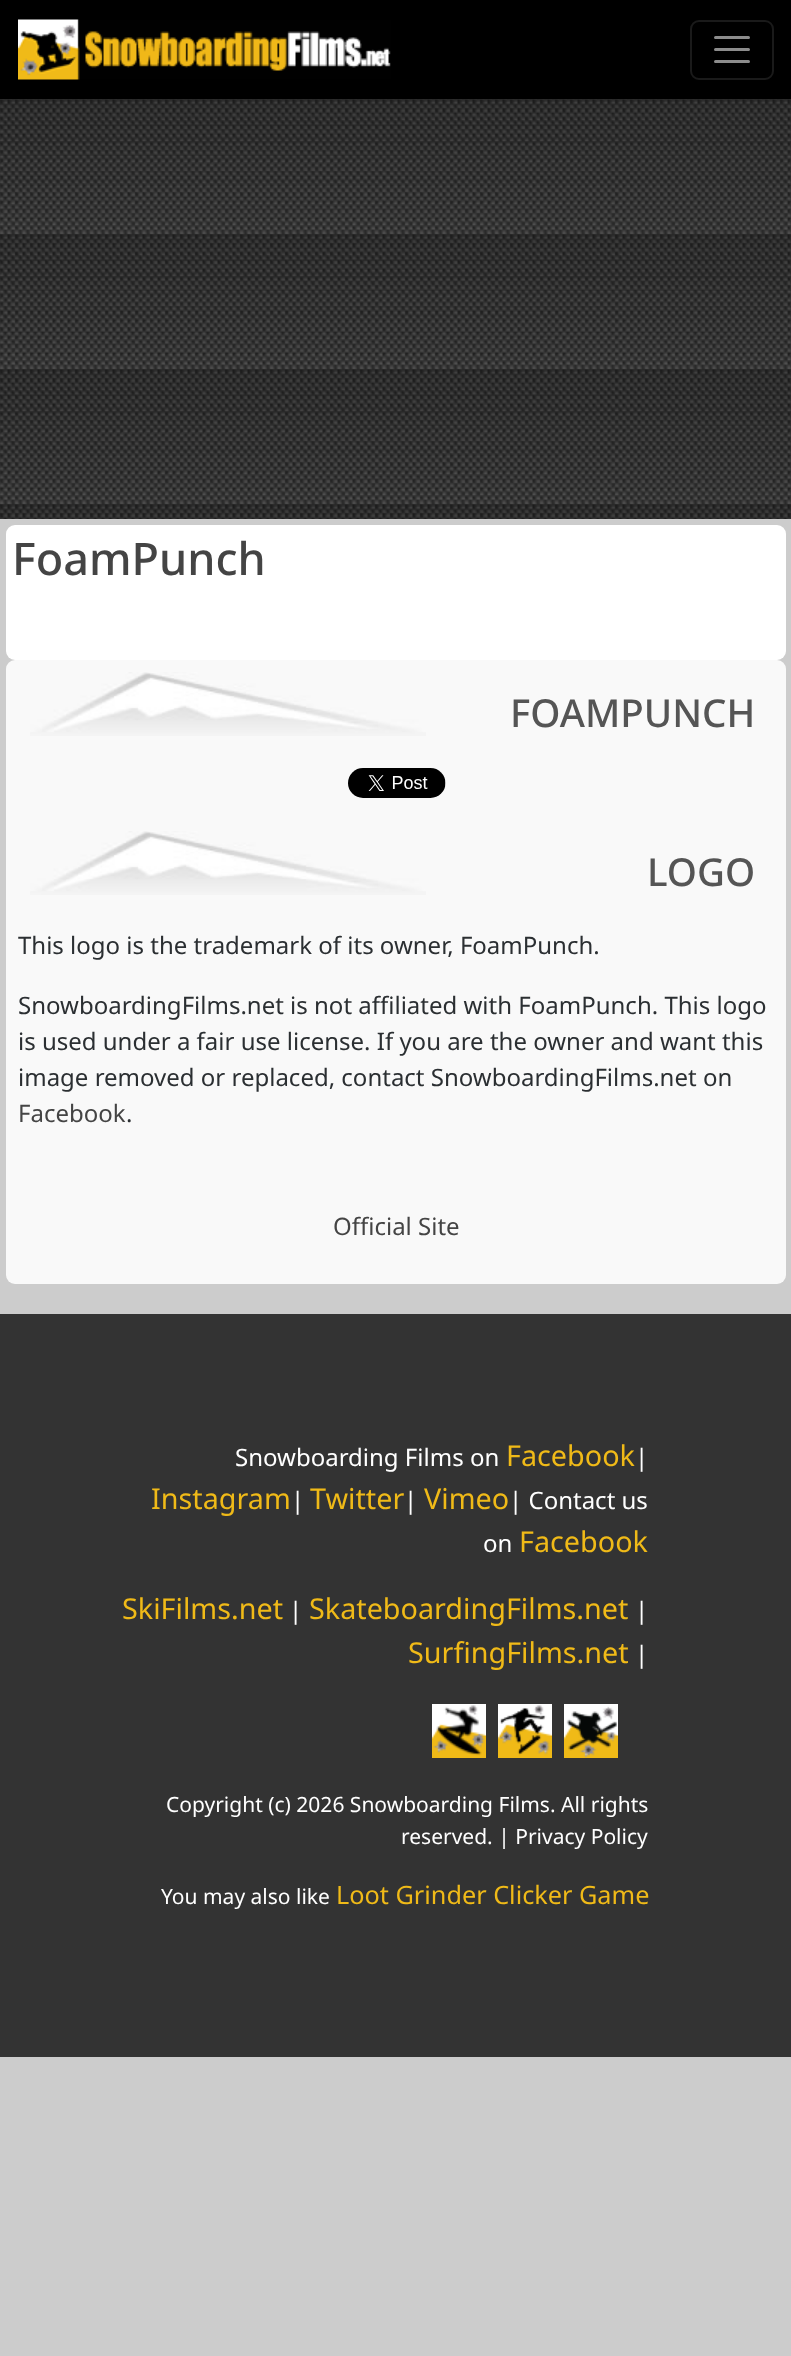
<svg xmlns="http://www.w3.org/2000/svg" width="791" height="2356" viewBox="0 0 791 2356">
  <rect width="100%" height="100%" fill="rgb(204,204,204)"/>
  <rect x="0" y="0" width="791" height="99" fill="rgb(0,0,0)"/>
  <image x="18" y="19" width="373" height="61" href="pic1.png"/>
  <rect x="691" y="21" width="82" height="58" rx="8" fill="none" stroke="rgb(26,26,26)" stroke-width="2"/>
  <path d="M715.5 37.5H748.5M715.5 49.5H748.5M715.5 61.5H748.5" fill="none" stroke="rgb(140,140,140)" stroke-width="3" stroke-linecap="round"/>
  <image x="0" y="99" width="791" height="420" href="pic2.png"/>
  <rect x="6" y="525" width="780" height="135" rx="9" fill="rgb(255,255,255)"/>
  <text x="12" y="575" font-family="Noto Sans" font-size="45" font-weight="500" fill="rgb(68,68,68)">FoamPunch</text>
  <rect x="6" y="660" width="780" height="624" rx="9" fill="rgb(249,249,249)"/>
  <image x="30" y="672" width="396" height="64" href="pic3.png"/>
  <text x="510" y="727" font-family="Noto Sans" font-size="38.5" font-weight="500" fill="rgb(85,85,85)">FOAMPUNCH</text>
  <image x="348" y="768" width="98" height="30" href="pic4.png"/>
  <image x="30" y="831" width="396" height="64" href="pic3.png"/>
  <text x="647" y="886" font-family="Noto Sans" font-size="38.5" font-weight="500" fill="rgb(85,85,85)">LOGO</text>
  <g font-family="Noto Sans" font-size="24" fill="rgb(43,47,50)">
    <text x="18" y="954">This logo is the trademark of its owner, FoamPunch.</text>
    <text>
      <tspan x="18" y="1014">SnowboardingFilms.net is not affiliated with FoamPunch. This logo</tspan>
      <tspan x="18" y="1050">is used under a fair use license. If you are the owner and want this</tspan>
      <tspan x="18" y="1086">image removed or replaced, contact SnowboardingFilms.net on</tspan>
    </text>
  </g>
  <text x="18" y="1122" font-family="Noto Sans" font-size="24" fill="rgb(68,68,68)">Facebook</text>
  <text x="126" y="1122" font-family="Noto Sans" font-size="24" fill="rgb(43,47,50)">.</text>
  <text x="333" y="1235" font-family="Noto Sans" font-size="24" fill="rgb(68,68,68)">Official Site</text>
  <rect x="0" y="1314" width="791" height="743" fill="rgb(51,51,51)"/>
  <text x="235" y="1466" font-family="Noto Sans" font-size="24" fill="rgb(255,255,255)">Snowboarding Films on</text>
  <text x="506" y="1466" font-family="Noto Sans" font-size="28.75" fill="rgb(240,186,24)">Facebook</text>
  <text x="635" y="1466" font-family="Noto Sans" font-size="24" fill="rgb(255,255,255)">|</text>
  <text x="151" y="1509" font-family="Noto Sans" font-size="28.75" fill="rgb(240,186,24)">Instagram</text>
  <text x="291" y="1509" font-family="Noto Sans" font-size="24" fill="rgb(255,255,255)">|</text>
  <text x="310" y="1509" font-family="Noto Sans" font-size="28.75" fill="rgb(240,186,24)">Twitter</text>
  <text x="404" y="1509" font-family="Noto Sans" font-size="24" fill="rgb(255,255,255)">|</text>
  <text x="424" y="1509" font-family="Noto Sans" font-size="28.75" fill="rgb(240,186,24)">Vimeo</text>
  <g font-family="Noto Sans" font-size="24" fill="rgb(255,255,255)">
    <text x="509" y="1509">| Contact us</text>
    <text x="483" y="1552">on</text>
  </g>
  <g font-family="Noto Sans" font-size="28.75" fill="rgb(240,186,24)">
    <text x="519" y="1552">Facebook</text>
    <text x="122" y="1619">SkiFilms.net</text>
  </g>
  <text x="289" y="1619" font-family="Noto Sans" font-size="24" fill="rgb(255,255,255)">|</text>
  <text x="309" y="1619" font-family="Noto Sans" font-size="28.75" fill="rgb(240,186,24)">SkateboardingFilms.net</text>
  <text x="635" y="1619" font-family="Noto Sans" font-size="24" fill="rgb(255,255,255)">|</text>
  <text x="408" y="1663" font-family="Noto Sans" font-size="28.75" fill="rgb(240,186,24)">SurfingFilms.net</text>
  <text x="635" y="1663" font-family="Noto Sans" font-size="24" fill="rgb(255,255,255)">|</text>
  <image x="432" y="1704" width="54" height="54" href="pic5.png"/>
  <image x="498" y="1704" width="54" height="54" href="pic6.png"/>
  <image x="564" y="1704" width="54" height="54" href="pic7.png"/>
  <g font-family="Noto Sans" font-size="21" fill="rgb(255,255,255)">
    <text x="166" y="1812">Copyright (c) 2026 Snowboarding Films. All rights</text>
    <text x="401" y="1844">reserved. | Privacy Policy</text>
    <text x="161" y="1904">You may also like</text>
  </g>
  <text x="336" y="1904" font-family="Noto Sans" font-size="25.25" fill="rgb(240,186,24)">Loot Grinder Clicker Game</text>
</svg>
